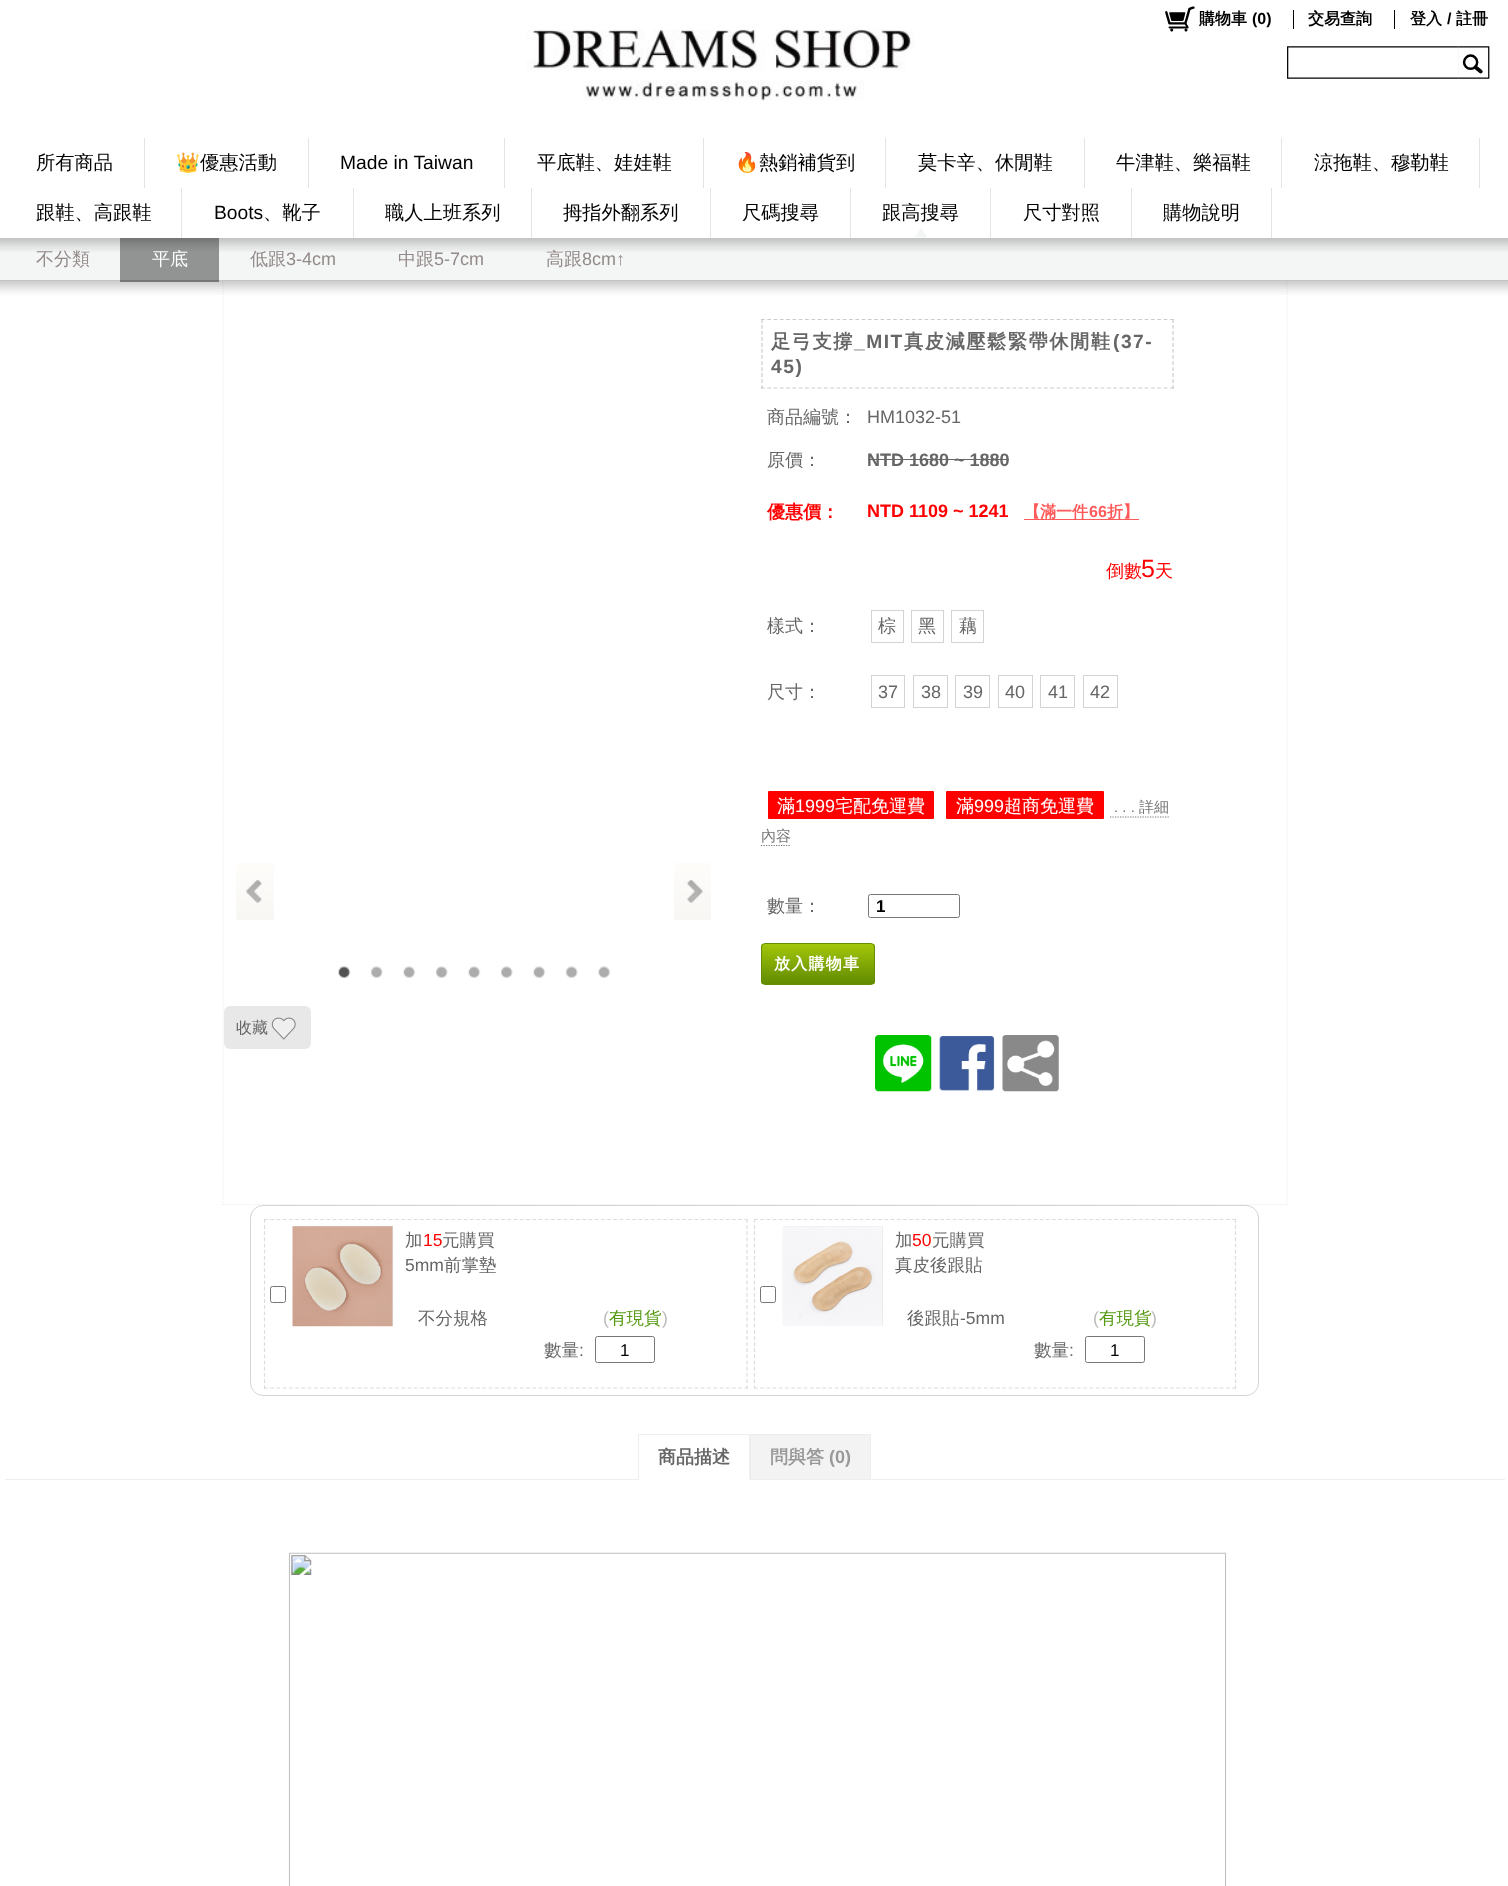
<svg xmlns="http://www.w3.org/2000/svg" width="1508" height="1886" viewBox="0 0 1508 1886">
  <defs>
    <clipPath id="clip1"><rect x="761" y="943" width="114" height="42" rx="4"/></clipPath>
    <linearGradient id="g1" gradientUnits="userSpaceOnUse" x1="818" y1="944" x2="818" y2="984"><stop offset="0" stop-color="rgb(163,199,10)"/><stop offset="1" stop-color="rgb(97,138,0)"/></linearGradient>
  </defs>
  <rect width="100%" height="100%" fill="rgb(255,255,255)"/>
  <rect x="120" y="281" width="99" height="1" fill="rgb(153,153,153)"/>
  <image x="1165" y="6" width="30" height="26" href="pic1.png"/>
  <text x="1199" y="24" font-family="WenQuanYi Zen Hei" font-size="16" font-weight="bold" fill="rgb(0,0,0)">購物車</text>
  <text x="1252" y="24" font-family="Liberation Sans" font-size="16" font-weight="bold" fill="rgb(0,0,0)">(0)</text>
  <rect x="1293" y="10" width="1" height="19" fill="rgb(0,0,0)"/>
  <text x="1308" y="24" font-family="WenQuanYi Zen Hei" font-size="16" font-weight="bold" fill="rgb(0,0,0)">交易查詢</text>
  <rect x="1394" y="10" width="1" height="19" fill="rgb(0,0,0)"/>
  <text x="1410" y="24" font-family="WenQuanYi Zen Hei" font-size="16" font-weight="bold" fill="rgb(0,0,0)">登入</text>
  <text x="1447" y="24" font-family="Liberation Sans" font-size="16" font-weight="bold" fill="rgb(0,0,0)">/</text>
  <text x="1456" y="24" font-family="WenQuanYi Zen Hei" font-size="16" font-weight="bold" fill="rgb(0,0,0)">註冊</text>
  <image x="526" y="29" width="389" height="72" href="pic2.png"/>
  <image x="1458" y="46" width="32" height="33" href="pic4.png"/>
  <image x="1287" y="46" width="172" height="33" href="pic3.png"/>
  <rect x="144" y="138" width="1" height="50" fill="rgb(228,228,228)"/>
  <text x="36" y="169" font-family="WenQuanYi Zen Hei" font-size="19.25" font-weight="500" fill="rgb(0,0,0)">所有商品</text>
  <rect x="308" y="138" width="1" height="50" fill="rgb(228,228,228)"/>
  <text x="176" y="169" font-family="Noto Color Emoji" font-size="19.25" fill="rgb(0,0,0)">👑</text>
  <text x="200" y="169" font-family="WenQuanYi Zen Hei" font-size="19.25" font-weight="500" fill="rgb(0,0,0)">優惠活動</text>
  <rect x="504" y="138" width="1" height="50" fill="rgb(228,228,228)"/>
  <text x="340" y="169" font-family="Liberation Sans" font-size="19.25" fill="rgb(0,0,0)">Made in Taiwan</text>
  <rect x="703" y="138" width="1" height="50" fill="rgb(228,228,228)"/>
  <text x="537" y="169" font-family="WenQuanYi Zen Hei" font-size="19.25" font-weight="500" fill="rgb(0,0,0)">平底鞋、娃娃鞋</text>
  <rect x="885" y="138" width="1" height="50" fill="rgb(228,228,228)"/>
  <text x="735" y="169" font-family="Noto Color Emoji" font-size="19.25" fill="rgb(0,0,0)">🔥</text>
  <text x="759" y="169" font-family="WenQuanYi Zen Hei" font-size="19.25" font-weight="500" fill="rgb(0,0,0)">熱銷補貨到</text>
  <rect x="1084" y="138" width="1" height="50" fill="rgb(228,228,228)"/>
  <text x="918" y="169" font-family="WenQuanYi Zen Hei" font-size="19.25" font-weight="500" fill="rgb(0,0,0)">莫卡辛、休閒鞋</text>
  <rect x="1281" y="138" width="1" height="50" fill="rgb(228,228,228)"/>
  <text x="1116" y="169" font-family="WenQuanYi Zen Hei" font-size="19.25" font-weight="500" fill="rgb(0,0,0)">牛津鞋、樂福鞋</text>
  <rect x="1479" y="138" width="1" height="50" fill="rgb(228,228,228)"/>
  <text x="1314" y="169" font-family="WenQuanYi Zen Hei" font-size="19.25" font-weight="500" fill="rgb(0,0,0)">涼拖鞋、穆勒鞋</text>
  <rect x="181" y="188" width="1" height="50" fill="rgb(228,228,228)"/>
  <text x="36" y="219" font-family="WenQuanYi Zen Hei" font-size="19.25" font-weight="500" fill="rgb(0,0,0)">跟鞋、高跟鞋</text>
  <rect x="353" y="188" width="1" height="50" fill="rgb(228,228,228)"/>
  <text x="214" y="219" font-family="Liberation Sans" font-size="19.25" fill="rgb(0,0,0)">Boots</text>
  <text x="263" y="219" font-family="WenQuanYi Zen Hei" font-size="19.25" font-weight="500" fill="rgb(0,0,0)">、靴子</text>
  <rect x="531" y="188" width="1" height="50" fill="rgb(228,228,228)"/>
  <text x="385" y="219" font-family="WenQuanYi Zen Hei" font-size="19.25" font-weight="500" fill="rgb(0,0,0)">職人上班系列</text>
  <rect x="710" y="188" width="1" height="50" fill="rgb(228,228,228)"/>
  <text x="563" y="219" font-family="WenQuanYi Zen Hei" font-size="19.25" font-weight="500" fill="rgb(0,0,0)">拇指外翻系列</text>
  <rect x="850" y="188" width="1" height="50" fill="rgb(228,228,228)"/>
  <text x="742" y="219" font-family="WenQuanYi Zen Hei" font-size="19.25" font-weight="500" fill="rgb(0,0,0)">尺碼搜尋</text>
  <rect x="990" y="188" width="1" height="50" fill="rgb(228,228,228)"/>
  <text x="882" y="219" font-family="WenQuanYi Zen Hei" font-size="19.25" font-weight="500" fill="rgb(0,0,0)">跟高搜尋</text>
  <path d="M927.5 237.5H915L921 227.5Z" fill="rgb(244,246,245)"/>
  <rect x="1131" y="188" width="1" height="50" fill="rgb(228,228,228)"/>
  <text x="1023" y="219" font-family="WenQuanYi Zen Hei" font-size="19.25" font-weight="500" fill="rgb(0,0,0)">尺寸對照</text>
  <rect x="1271" y="188" width="1" height="50" fill="rgb(228,228,228)"/>
  <text x="1163" y="219" font-family="WenQuanYi Zen Hei" font-size="19.25" font-weight="500" fill="rgb(0,0,0)">購物說明</text>
  <rect x="0" y="238" width="1508" height="43" fill="rgb(244,246,245)"/>
  <rect x="120" y="238" width="99" height="43" fill="rgb(146,148,147)"/>
  <text x="36" y="265" font-family="WenQuanYi Zen Hei" font-size="18" font-weight="500" fill="rgb(147,138,138)">不分類</text>
  <text x="152" y="265" font-family="WenQuanYi Zen Hei" font-size="18" font-weight="500" fill="rgb(255,255,255)">平底</text>
  <g font-family="WenQuanYi Zen Hei" font-size="18" font-weight="500" fill="rgb(147,138,138)">
    <text x="250" y="265">低跟</text>
    <text x="398" y="265">中跟</text>
    <text x="546" y="265">高跟</text>
  </g>
  <image x="0" y="238" width="1508" height="14" href="pic5.png"/>
  <g font-family="Liberation Sans" font-size="18" fill="rgb(147,138,138)">
    <text x="286" y="265">3-4cm</text>
    <text x="434" y="265">5-7cm</text>
    <text x="582" y="265">8cm↑</text>
  </g>
  <path d="M1287 281V1205" fill="none" stroke="rgb(238,238,238)" stroke-width="1.2" stroke-dasharray="1.25 1.25"/>
  <path d="M222.5 1204.5H1287.5" fill="none" stroke="rgb(238,238,238)" stroke-width="1.2" stroke-dasharray="1.25 1.25"/>
  <path d="M223 281V1205" fill="none" stroke="rgb(238,238,238)" stroke-width="1.2" stroke-dasharray="1.25 1.25"/>
  <image x="0" y="280" width="1508" height="15" href="pic6.png"/>
  <path d="M761 319.5H1174" fill="none" stroke="rgb(204,204,204)" stroke-width="1.2" stroke-dasharray="3.75 2.54"/>
  <path d="M1173 319V389" fill="none" stroke="rgb(204,204,204)" stroke-width="1.2" stroke-dasharray="3.75 2.27"/>
  <path d="M761 388H1174" fill="none" stroke="rgb(204,204,204)" stroke-width="1.2" stroke-dasharray="3.75 2.54"/>
  <path d="M762 319V389" fill="none" stroke="rgb(204,204,204)" stroke-width="1.2" stroke-dasharray="3.75 2.27"/>
  <text x="771" y="348" font-family="WenQuanYi Zen Hei" font-size="19.25" font-weight="bold" letter-spacing="1.5" fill="rgb(102,102,102)">足弓支撐</text>
  <text x="854" y="348" font-family="Liberation Sans" font-size="19.25" font-weight="bold" letter-spacing="1.5" fill="rgb(102,102,102)">_MIT</text>
  <text x="904" y="348" font-family="WenQuanYi Zen Hei" font-size="19.25" font-weight="bold" letter-spacing="1.5" fill="rgb(102,102,102)">真皮減壓鬆緊帶休閒鞋</text>
  <g font-family="Liberation Sans" font-size="19.25" font-weight="bold" letter-spacing="1.5" fill="rgb(102,102,102)">
    <text x="1113" y="348">(37-</text>
    <text x="771" y="373">45)</text>
  </g>
  <text x="767" y="423" font-family="WenQuanYi Zen Hei" font-size="18" font-weight="500" fill="rgb(102,102,102)">商品編號：</text>
  <text x="867" y="423" font-family="Liberation Sans" font-size="18" fill="rgb(102,102,102)">HM1032-51</text>
  <text x="767" y="466" font-family="WenQuanYi Zen Hei" font-size="18" font-weight="500" fill="rgb(102,102,102)">原價：</text>
  <text x="867" y="466" font-family="Liberation Sans" font-size="18" font-weight="bold" fill="rgb(102,102,102)">NTD 1680 ~ 1880</text>
  <rect x="868" y="459" width="141" height="1" fill="rgb(102,102,102)"/>
  <text x="767" y="518" font-family="WenQuanYi Zen Hei" font-size="18" font-weight="bold" fill="rgb(255,0,0)">優惠價：</text>
  <text x="867" y="517" font-family="Liberation Sans" font-size="18" font-weight="bold" fill="rgb(255,0,0)">NTD 1109 ~ 1241</text>
  <rect x="1024" y="519" width="115" height="1" fill="rgb(255,90,90)"/>
  <text x="1024" y="517" font-family="WenQuanYi Zen Hei" font-size="16" font-weight="bold" fill="rgb(255,90,90)">【滿一件</text>
  <text x="1089" y="517" font-family="Liberation Sans" font-size="16" font-weight="bold" fill="rgb(255,90,90)">66</text>
  <text x="1107" y="517" font-family="WenQuanYi Zen Hei" font-size="16" font-weight="bold" fill="rgb(255,90,90)">折】</text>
  <text x="1106" y="577" font-family="WenQuanYi Zen Hei" font-size="18" font-weight="500" fill="rgb(255,0,0)">倒數</text>
  <text x="1141" y="577" font-family="Liberation Sans" font-size="25" fill="rgb(255,0,0)">5</text>
  <text x="1155" y="577" font-family="WenQuanYi Zen Hei" font-size="18" font-weight="500" fill="rgb(255,0,0)">天</text>
  <text x="767" y="632" font-family="WenQuanYi Zen Hei" font-size="18" font-weight="500" fill="rgb(102,102,102)">樣式：</text>
  <rect x="871.5" y="610.5" width="32" height="32" fill="none" stroke="rgb(211,211,211)"/>
  <text x="878" y="632" font-family="WenQuanYi Zen Hei" font-size="18" font-weight="500" fill="rgb(102,102,102)">棕</text>
  <rect x="911.5" y="610.5" width="32" height="32" fill="none" stroke="rgb(211,211,211)"/>
  <text x="918" y="632" font-family="WenQuanYi Zen Hei" font-size="18" font-weight="500" fill="rgb(102,102,102)">黑</text>
  <rect x="951.5" y="610.5" width="32" height="32" fill="none" stroke="rgb(211,211,211)"/>
  <g font-family="WenQuanYi Zen Hei" font-size="18" font-weight="500" fill="rgb(102,102,102)">
    <text x="959" y="632">藕</text>
    <text x="767" y="698">尺寸：</text>
  </g>
  <rect x="871.5" y="675.5" width="33" height="32" fill="none" stroke="rgb(211,211,211)"/>
  <text x="878" y="698" font-family="Liberation Sans" font-size="18" fill="rgb(102,102,102)">37</text>
  <rect x="913.5" y="675.5" width="34" height="32" fill="none" stroke="rgb(211,211,211)"/>
  <text x="921" y="698" font-family="Liberation Sans" font-size="18" fill="rgb(102,102,102)">38</text>
  <rect x="955.5" y="675.5" width="34" height="32" fill="none" stroke="rgb(211,211,211)"/>
  <text x="963" y="698" font-family="Liberation Sans" font-size="18" fill="rgb(102,102,102)">39</text>
  <rect x="998.5" y="675.5" width="34" height="32" fill="none" stroke="rgb(211,211,211)"/>
  <text x="1005" y="698" font-family="Liberation Sans" font-size="18" fill="rgb(102,102,102)">40</text>
  <rect x="1040.5" y="675.5" width="34" height="32" fill="none" stroke="rgb(211,211,211)"/>
  <text x="1048" y="698" font-family="Liberation Sans" font-size="18" fill="rgb(102,102,102)">41</text>
  <rect x="1083.5" y="675.5" width="34" height="32" fill="none" stroke="rgb(211,211,211)"/>
  <text x="1090" y="698" font-family="Liberation Sans" font-size="18" fill="rgb(102,102,102)">42</text>
  <rect x="768" y="791" width="166" height="28" rx="1" fill="rgb(255,0,0)"/>
  <text x="777" y="812" font-family="WenQuanYi Zen Hei" font-size="18" font-weight="500" fill="rgb(255,255,255)">滿</text>
  <text x="795" y="812" font-family="Liberation Sans" font-size="18" fill="rgb(255,255,255)">1999</text>
  <text x="835" y="812" font-family="WenQuanYi Zen Hei" font-size="18" font-weight="500" fill="rgb(255,255,255)">宅配免運費</text>
  <rect x="946" y="791" width="158" height="28" rx="1" fill="rgb(255,0,0)"/>
  <text x="956" y="812" font-family="WenQuanYi Zen Hei" font-size="18" font-weight="500" fill="rgb(255,255,255)">滿</text>
  <text x="974" y="812" font-family="Liberation Sans" font-size="18" fill="rgb(255,255,255)">999</text>
  <text x="1004" y="812" font-family="WenQuanYi Zen Hei" font-size="18" font-weight="500" fill="rgb(255,255,255)">超商免運費</text>
  <text x="1114" y="812" font-family="Liberation Sans" font-size="15" fill="rgb(119,119,119)">. . .</text>
  <path d="M1110 817H1169" fill="none" stroke="rgb(119,119,119)" stroke-width="1.2" stroke-dasharray="1.25 1.25"/>
  <g font-family="WenQuanYi Zen Hei" font-size="15" font-weight="500" fill="rgb(119,119,119)">
    <text x="1139" y="812">詳細</text>
    <text x="761" y="841">內容</text>
  </g>
  <path d="M761 845.5H791" fill="none" stroke="rgb(119,119,119)" stroke-width="1.2" stroke-dasharray="1.25 1.25"/>
  <text x="767" y="912" font-family="WenQuanYi Zen Hei" font-size="18" font-weight="500" fill="rgb(102,102,102)">數量：</text>
  <rect x="868.5" y="894.5" width="91" height="23" rx="2" fill="none" stroke="rgb(118,118,118)"/>
  <text x="876" y="912" font-family="Liberation Sans" font-size="17" font-weight="bold" fill="rgb(0,0,0)">1</text>
  <g clip-path="url(#clip1)">
    <rect x="761" y="944" width="114" height="40" fill="url(#g1)"/>
  </g>
  <rect x="761.5" y="943.5" width="113" height="41" rx="3.5" fill="none" stroke="rgb(101,143,0)"/>
  <text x="774" y="969" font-family="WenQuanYi Zen Hei" font-size="16" font-weight="bold" letter-spacing="1.25" fill="rgb(255,255,255)">放入購物車</text>
  <image x="875" y="1035" width="57" height="57" href="pic7.png"/>
  <image x="939" y="1036" width="56" height="55" href="pic8.png"/>
  <image x="1002" y="1035" width="57" height="57" href="pic9.png"/>
  <image x="236" y="863" width="38" height="57" href="pic10.png"/>
  <image x="674" y="863" width="37" height="57" href="pic11.png"/>
  <image x="338" y="966" width="13" height="12" href="pic12.png"/>
  <image x="371" y="966" width="12" height="12" href="pic13.png"/>
  <image x="403" y="966" width="13" height="12" href="pic14.png"/>
  <image x="436" y="966" width="12" height="12" href="pic13.png"/>
  <image x="468" y="966" width="13" height="12" href="pic15.png"/>
  <image x="501" y="966" width="12" height="12" href="pic13.png"/>
  <image x="533" y="966" width="13" height="12" href="pic15.png"/>
  <image x="566" y="966" width="12" height="12" href="pic13.png"/>
  <image x="598" y="966" width="13" height="12" href="pic15.png"/>
  <rect x="224" y="1006" width="87" height="43" rx="6" fill="rgb(232,232,232)"/>
  <text x="236" y="1033" font-family="WenQuanYi Zen Hei" font-size="16" font-weight="500" fill="rgb(102,102,102)">收藏</text>
  <image x="271" y="1017" width="25" height="23" href="pic16.png"/>
  <rect x="250.5" y="1205.5" width="1008" height="190" rx="12.5" fill="none" stroke="rgb(212,212,212)"/>
  <path d="M264 1219.5H747.5" fill="none" stroke="rgb(220,220,220)" stroke-width="1.2" stroke-dasharray="3.75 2.49"/>
  <path d="M747 1219V1389" fill="none" stroke="rgb(220,220,220)" stroke-width="1.2" stroke-dasharray="3.75 2.41"/>
  <path d="M264 1388H747.5" fill="none" stroke="rgb(220,220,220)" stroke-width="1.2" stroke-dasharray="3.75 2.49"/>
  <path d="M264.5 1219V1389" fill="none" stroke="rgb(220,220,220)" stroke-width="1.2" stroke-dasharray="3.75 2.41"/>
  <rect x="270.5" y="1286.5" width="15" height="16" rx="2" fill="none" stroke="rgb(118,118,118)"/>
  <rect x="293" y="1226" width="100" height="100" fill="rgb(226,226,226)"/>
  <image x="292" y="1226" width="101" height="101" href="pic17.png"/>
  <text x="405" y="1246" font-family="WenQuanYi Zen Hei" font-size="17.5" font-weight="500" fill="rgb(102,102,102)">加</text>
  <text x="423" y="1246" font-family="Liberation Sans" font-size="17.5" fill="rgb(255,0,0)">15</text>
  <text x="442" y="1246" font-family="WenQuanYi Zen Hei" font-size="17.5" font-weight="500" fill="rgb(102,102,102)">元購買</text>
  <text x="405" y="1271" font-family="Liberation Sans" font-size="17.5" fill="rgb(102,102,102)">5mm</text>
  <g font-family="WenQuanYi Zen Hei" font-size="17.5" font-weight="500" fill="rgb(102,102,102)">
    <text x="444" y="1271">前掌墊</text>
    <text x="418" y="1324">不分規格</text>
  </g>
  <text x="603" y="1324" font-family="Liberation Sans" font-size="17.5" fill="rgb(187,187,187)">(</text>
  <text x="609" y="1324" font-family="WenQuanYi Zen Hei" font-size="17.5" font-weight="500" fill="rgb(86,154,19)">有現貨</text>
  <text x="662" y="1324" font-family="Liberation Sans" font-size="17.5" fill="rgb(187,187,187)">)</text>
  <text x="544" y="1356" font-family="WenQuanYi Zen Hei" font-size="17.5" font-weight="500" fill="rgb(102,102,102)">數量</text>
  <text x="579" y="1356" font-family="Liberation Sans" font-size="17.5" fill="rgb(102,102,102)">:</text>
  <rect x="595.5" y="1336.5" width="59" height="26" rx="2" fill="none" stroke="rgb(118,118,118)"/>
  <text x="620" y="1356" font-family="Liberation Sans" font-size="17" fill="rgb(0,0,0)">1</text>
  <path d="M754 1219.5H1236" fill="none" stroke="rgb(220,220,220)" stroke-width="1.2" stroke-dasharray="3.75 2.46"/>
  <path d="M1235.5 1219V1389" fill="none" stroke="rgb(220,220,220)" stroke-width="1.2" stroke-dasharray="3.75 2.41"/>
  <path d="M754 1388H1236" fill="none" stroke="rgb(220,220,220)" stroke-width="1.2" stroke-dasharray="3.75 2.46"/>
  <path d="M754.5 1219V1389" fill="none" stroke="rgb(220,220,220)" stroke-width="1.2" stroke-dasharray="3.75 2.41"/>
  <rect x="760.5" y="1286.5" width="15" height="16" rx="2" fill="none" stroke="rgb(118,118,118)"/>
  <rect x="783" y="1226" width="100" height="100" fill="rgb(226,226,226)"/>
  <image x="782" y="1226" width="101" height="100" href="pic18.png"/>
  <text x="895" y="1246" font-family="WenQuanYi Zen Hei" font-size="17.5" font-weight="500" fill="rgb(102,102,102)">加</text>
  <text x="912" y="1246" font-family="Liberation Sans" font-size="17.5" fill="rgb(255,0,0)">50</text>
  <g font-family="WenQuanYi Zen Hei" font-size="17.5" font-weight="500" fill="rgb(102,102,102)">
    <text x="932" y="1246">元購買</text>
    <text x="895" y="1271">真皮後跟貼</text>
    <text x="907" y="1324">後跟貼</text>
  </g>
  <text x="960" y="1324" font-family="Liberation Sans" font-size="17.5" fill="rgb(102,102,102)">-5mm</text>
  <text x="1093" y="1324" font-family="Liberation Sans" font-size="17.5" fill="rgb(187,187,187)">(</text>
  <text x="1099" y="1324" font-family="WenQuanYi Zen Hei" font-size="17.5" font-weight="500" fill="rgb(86,154,19)">有現貨</text>
  <text x="1151" y="1324" font-family="Liberation Sans" font-size="17.5" fill="rgb(187,187,187)">)</text>
  <text x="1034" y="1356" font-family="WenQuanYi Zen Hei" font-size="17.5" font-weight="500" fill="rgb(102,102,102)">數量</text>
  <text x="1069" y="1356" font-family="Liberation Sans" font-size="17.5" fill="rgb(102,102,102)">:</text>
  <rect x="1085.5" y="1336.5" width="59" height="26" rx="2" fill="none" stroke="rgb(118,118,118)"/>
  <text x="1110" y="1356" font-family="Liberation Sans" font-size="17" fill="rgb(0,0,0)">1</text>
  <rect x="638" y="1434" width="112" height="1" fill="rgb(238,238,238)"/>
  <rect x="5" y="1479" width="1500" height="1" fill="rgb(238,238,238)"/>
  <rect x="749" y="1434" width="1" height="46" fill="rgb(238,238,238)"/>
  <rect x="638" y="1479" width="112" height="1" fill="rgb(255,255,255)"/>
  <rect x="638" y="1434" width="1" height="46" fill="rgb(238,238,238)"/>
  <text x="658" y="1463" font-family="WenQuanYi Zen Hei" font-size="18" font-weight="bold" fill="rgb(102,102,102)">商品描述</text>
  <rect x="750.5" y="1434.5" width="120" height="45" fill="rgb(243,243,243)" stroke="rgb(238,238,238)"/>
  <text x="770" y="1463" font-family="WenQuanYi Zen Hei" font-size="18" font-weight="bold" fill="rgb(153,153,153)">問與答</text>
  <text x="829" y="1463" font-family="Liberation Sans" font-size="18" font-weight="bold" fill="rgb(153,153,153)">(0)</text>
  <image x="288" y="1552" width="939" height="334" href="pic19.png"/>
</svg>
